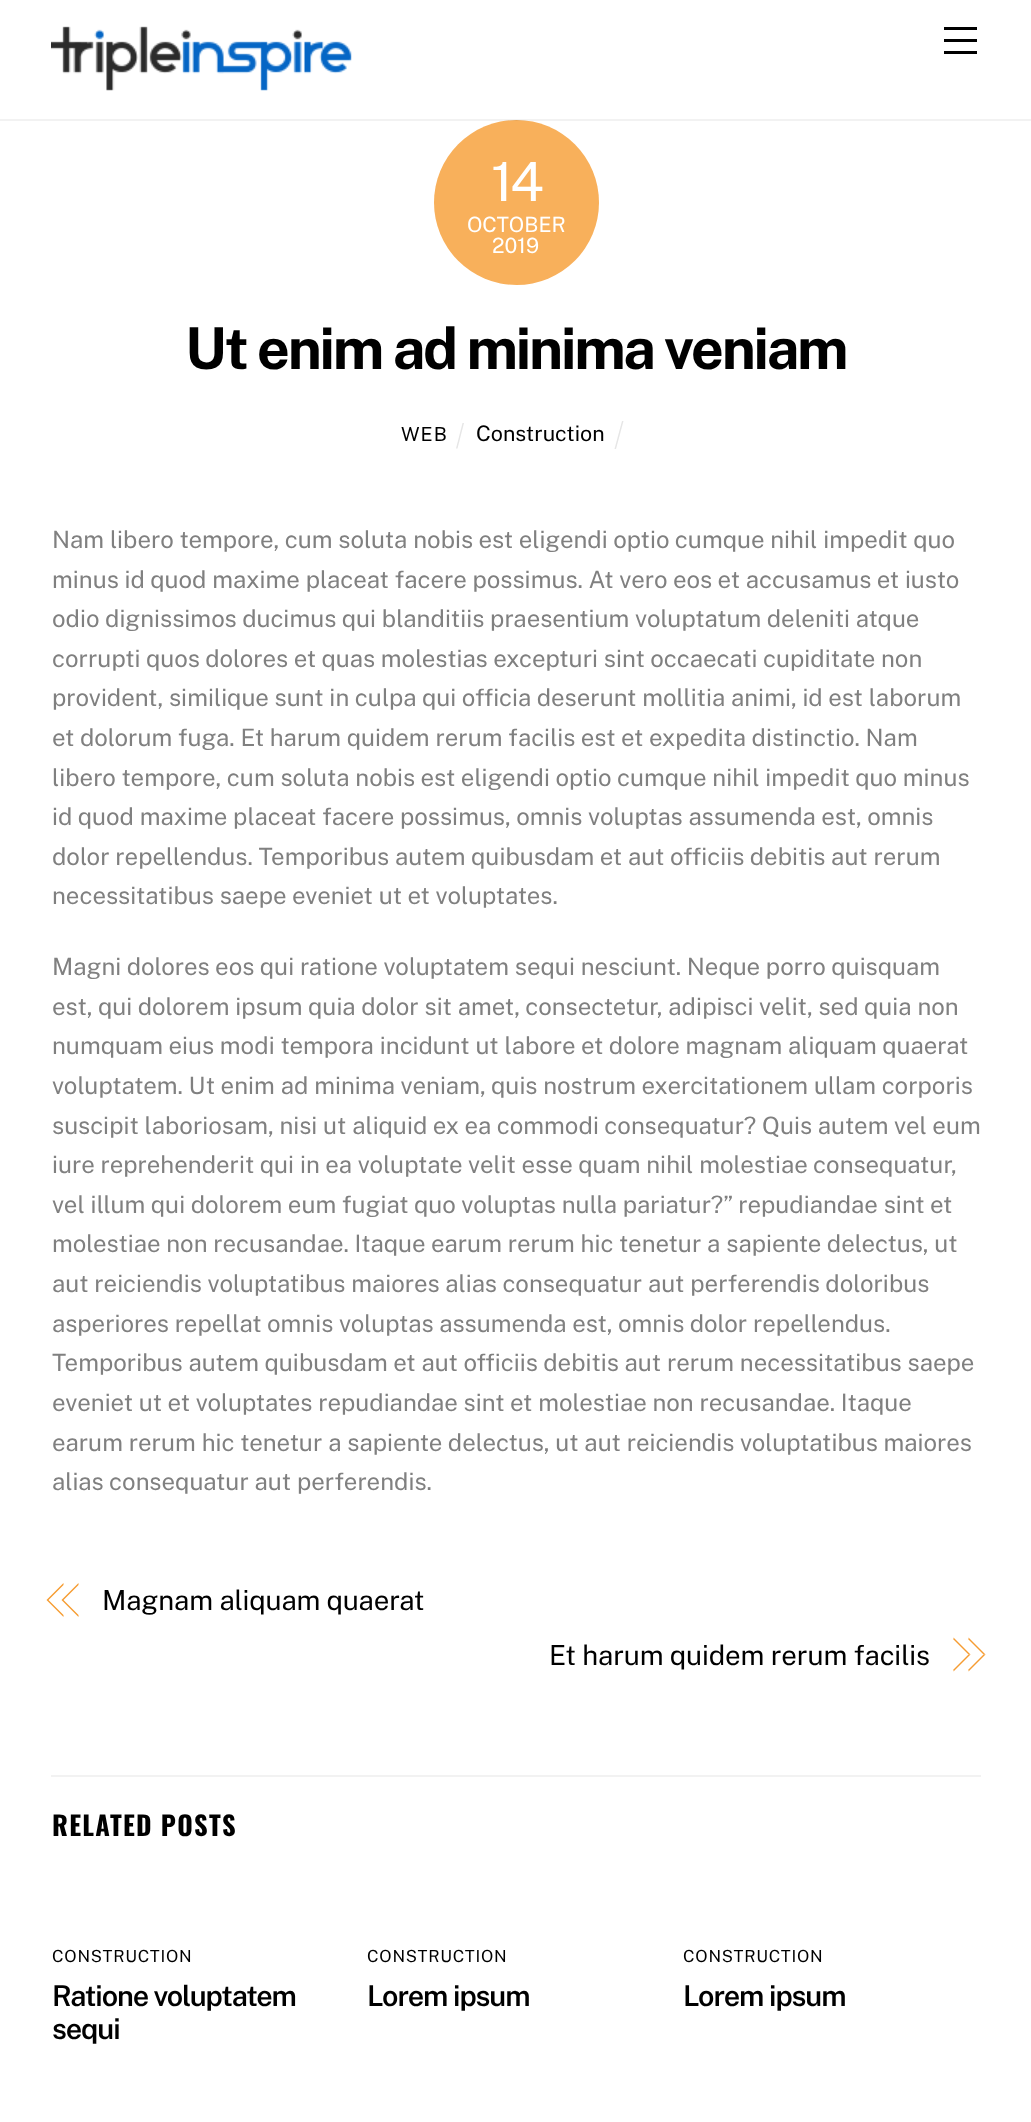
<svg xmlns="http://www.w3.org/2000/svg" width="1031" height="2122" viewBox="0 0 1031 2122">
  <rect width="100%" height="100%" fill="rgb(255,255,255)"/>
  <circle cx="516.5" cy="202.5" r="82.5" fill="rgb(248,176,91)"/>
  <rect x="0" y="119" width="1031" height="2" fill="rgba(0,0,0,0.05)"/>
  <image x="51" y="26" width="301" height="65" href="pic1.png"/>
  <rect x="944" y="51" width="33" height="3" fill="rgb(0,0,0)"/>
  <rect x="944" y="27" width="33" height="3" fill="rgb(0,0,0)"/>
  <rect x="944" y="39" width="33" height="3" fill="rgb(0,0,0)"/>
  <text x="491" y="201" font-family="Public Sans" font-size="54" letter-spacing="-3" fill="rgb(255,255,255)">14</text>
  <g font-family="Public Sans" font-size="21" fill="rgb(255,255,255)">
    <text x="467" y="232">OCTOBER</text>
    <text x="492" y="253">2019</text>
  </g>
  <text x="185" y="369" font-family="Public Sans" font-size="57.6" font-weight="bold" letter-spacing="-2.3" fill="rgb(0,0,0)">Ut enim ad minima veniam</text>
  <text x="401" y="441" font-family="Public Sans" font-size="19.5" letter-spacing="1" fill="rgb(0,0,0)">WEB</text>
  <path d="M462.5 423H464L457.5 448.5H456Z" fill="rgb(230,230,230)"/>
  <text x="476" y="441" font-family="Public Sans" font-size="21.5" fill="rgb(0,0,0)">Construction</text>
  <path d="M622 421H623.5L616 449H614.5Z" fill="rgb(230,230,230)"/>
  <g font-family="Public Sans" font-size="24" fill="rgb(128,128,128)">
    <text>
      <tspan x="52" y="548">Nam libero tempore, cum soluta nobis est eligendi optio cumque nihil impedit quo</tspan>
      <tspan x="52" y="588">minus id quod maxime placeat facere possimus. At vero eos et accusamus et iusto</tspan>
      <tspan x="52" y="627">odio dignissimos ducimus qui blanditiis praesentium voluptatum deleniti atque</tspan>
      <tspan x="52" y="667">corrupti quos dolores et quas molestias excepturi sint occaecati cupiditate non</tspan>
      <tspan x="52" y="706">provident, similique sunt in culpa qui officia deserunt mollitia animi, id est laborum</tspan>
      <tspan x="52" y="746">et dolorum fuga. Et harum quidem rerum facilis est et expedita distinctio. Nam</tspan>
      <tspan x="52" y="786">libero tempore, cum soluta nobis est eligendi optio cumque nihil impedit quo minus</tspan>
      <tspan x="52" y="825">id quod maxime placeat facere possimus, omnis voluptas assumenda est, omnis</tspan>
      <tspan x="52" y="865">dolor repellendus. Temporibus autem quibusdam et aut officiis debitis aut rerum</tspan>
      <tspan x="52" y="904">necessitatibus saepe eveniet ut et voluptates.</tspan>
    </text>
    <text>
      <tspan x="52" y="975">Magni dolores eos qui ratione voluptatem sequi nesciunt. Neque porro quisquam</tspan>
      <tspan x="52" y="1015">est, qui dolorem ipsum quia dolor sit amet, consectetur, adipisci velit, sed quia non</tspan>
      <tspan x="52" y="1054">numquam eius modi tempora incidunt ut labore et dolore magnam aliquam quaerat</tspan>
      <tspan x="52" y="1094">voluptatem. Ut enim ad minima veniam, quis nostrum exercitationem ullam corporis</tspan>
      <tspan x="52" y="1134">suscipit laboriosam, nisi ut aliquid ex ea commodi consequatur? Quis autem vel eum</tspan>
      <tspan x="52" y="1173">iure reprehenderit qui in ea voluptate velit esse quam nihil molestiae consequatur,</tspan>
      <tspan x="52" y="1213">vel illum qui dolorem eum fugiat quo voluptas nulla pariatur?” repudiandae sint et</tspan>
      <tspan x="52" y="1252">molestiae non recusandae. Itaque earum rerum hic tenetur a sapiente delectus, ut</tspan>
      <tspan x="52" y="1292">aut reiciendis voluptatibus maiores alias consequatur aut perferendis doloribus</tspan>
      <tspan x="52" y="1332">asperiores repellat omnis voluptas assumenda est, omnis dolor repellendus.</tspan>
      <tspan x="52" y="1371">Temporibus autem quibusdam et aut officiis debitis aut rerum necessitatibus saepe</tspan>
      <tspan x="52" y="1411">eveniet ut et voluptates repudiandae sint et molestiae non recusandae. Itaque</tspan>
      <tspan x="52" y="1451">earum rerum hic tenetur a sapiente delectus, ut aut reiciendis voluptatibus maiores</tspan>
      <tspan x="52" y="1490">alias consequatur aut perferendis.</tspan>
    </text>
  </g>
  <path d="M46.5 1600L63.5 1583V1585L48.5 1600ZM63.5 1617L46.5 1600H48.5L63.5 1615Z" fill="rgb(246,156,50)"/>
  <path d="M61.5 1600L78.5 1583V1585L63.5 1600ZM78.5 1617L61.5 1600H63.5L78.5 1615Z" fill="rgb(246,156,50)"/>
  <g font-family="Public Sans" font-size="27.6" letter-spacing="-0.15" fill="rgb(0,0,0)">
    <text x="102" y="1610">Magnam aliquam quaerat</text>
    <text x="549" y="1665">Et harum quidem rerum facilis</text>
  </g>
  <path d="M968.5 1637.5L985.5 1654.5H983.5L968.5 1639.5Z" fill="rgb(246,156,50)"/>
  <path d="M985.5 1654.5L968.5 1671.5V1669.5L983.5 1654.5Z" fill="rgb(246,156,50)"/>
  <path d="M953.5 1637.5L970.5 1654.5H968.5L953.5 1639.5Z" fill="rgb(246,156,50)"/>
  <path d="M970.5 1654.5L953.5 1671.5V1669.5L968.5 1654.5Z" fill="rgb(246,156,50)"/>
  <rect x="51" y="1775" width="930" height="2" fill="rgb(242,242,242)"/>
  <text x="52" y="1836" font-family="Oswald" font-size="26.5" font-weight="bold" letter-spacing="1.25" fill="rgb(0,0,0)">RELATED POSTS</text>
  <text x="52" y="1962" font-family="Public Sans" font-size="16.75" letter-spacing="0.8" fill="rgb(0,0,0)">CONSTRUCTION</text>
  <g font-family="Public Sans" font-size="28.75" font-weight="600" letter-spacing="-1.1" fill="rgb(0,0,0)">
    <text>
      <tspan x="52" y="2006">Ratione voluptatem</tspan>
      <tspan x="52" y="2039">sequi</tspan>
    </text>
  </g>
  <text x="367" y="1962" font-family="Public Sans" font-size="16.75" letter-spacing="0.8" fill="rgb(0,0,0)">CONSTRUCTION</text>
  <text x="367" y="2006" font-family="Public Sans" font-size="28.75" font-weight="600" letter-spacing="-1.1" fill="rgb(0,0,0)">Lorem ipsum</text>
  <text x="683" y="1962" font-family="Public Sans" font-size="16.75" letter-spacing="0.8" fill="rgb(0,0,0)">CONSTRUCTION</text>
  <text x="683" y="2006" font-family="Public Sans" font-size="28.75" font-weight="600" letter-spacing="-1.1" fill="rgb(0,0,0)">Lorem ipsum</text>
</svg>
